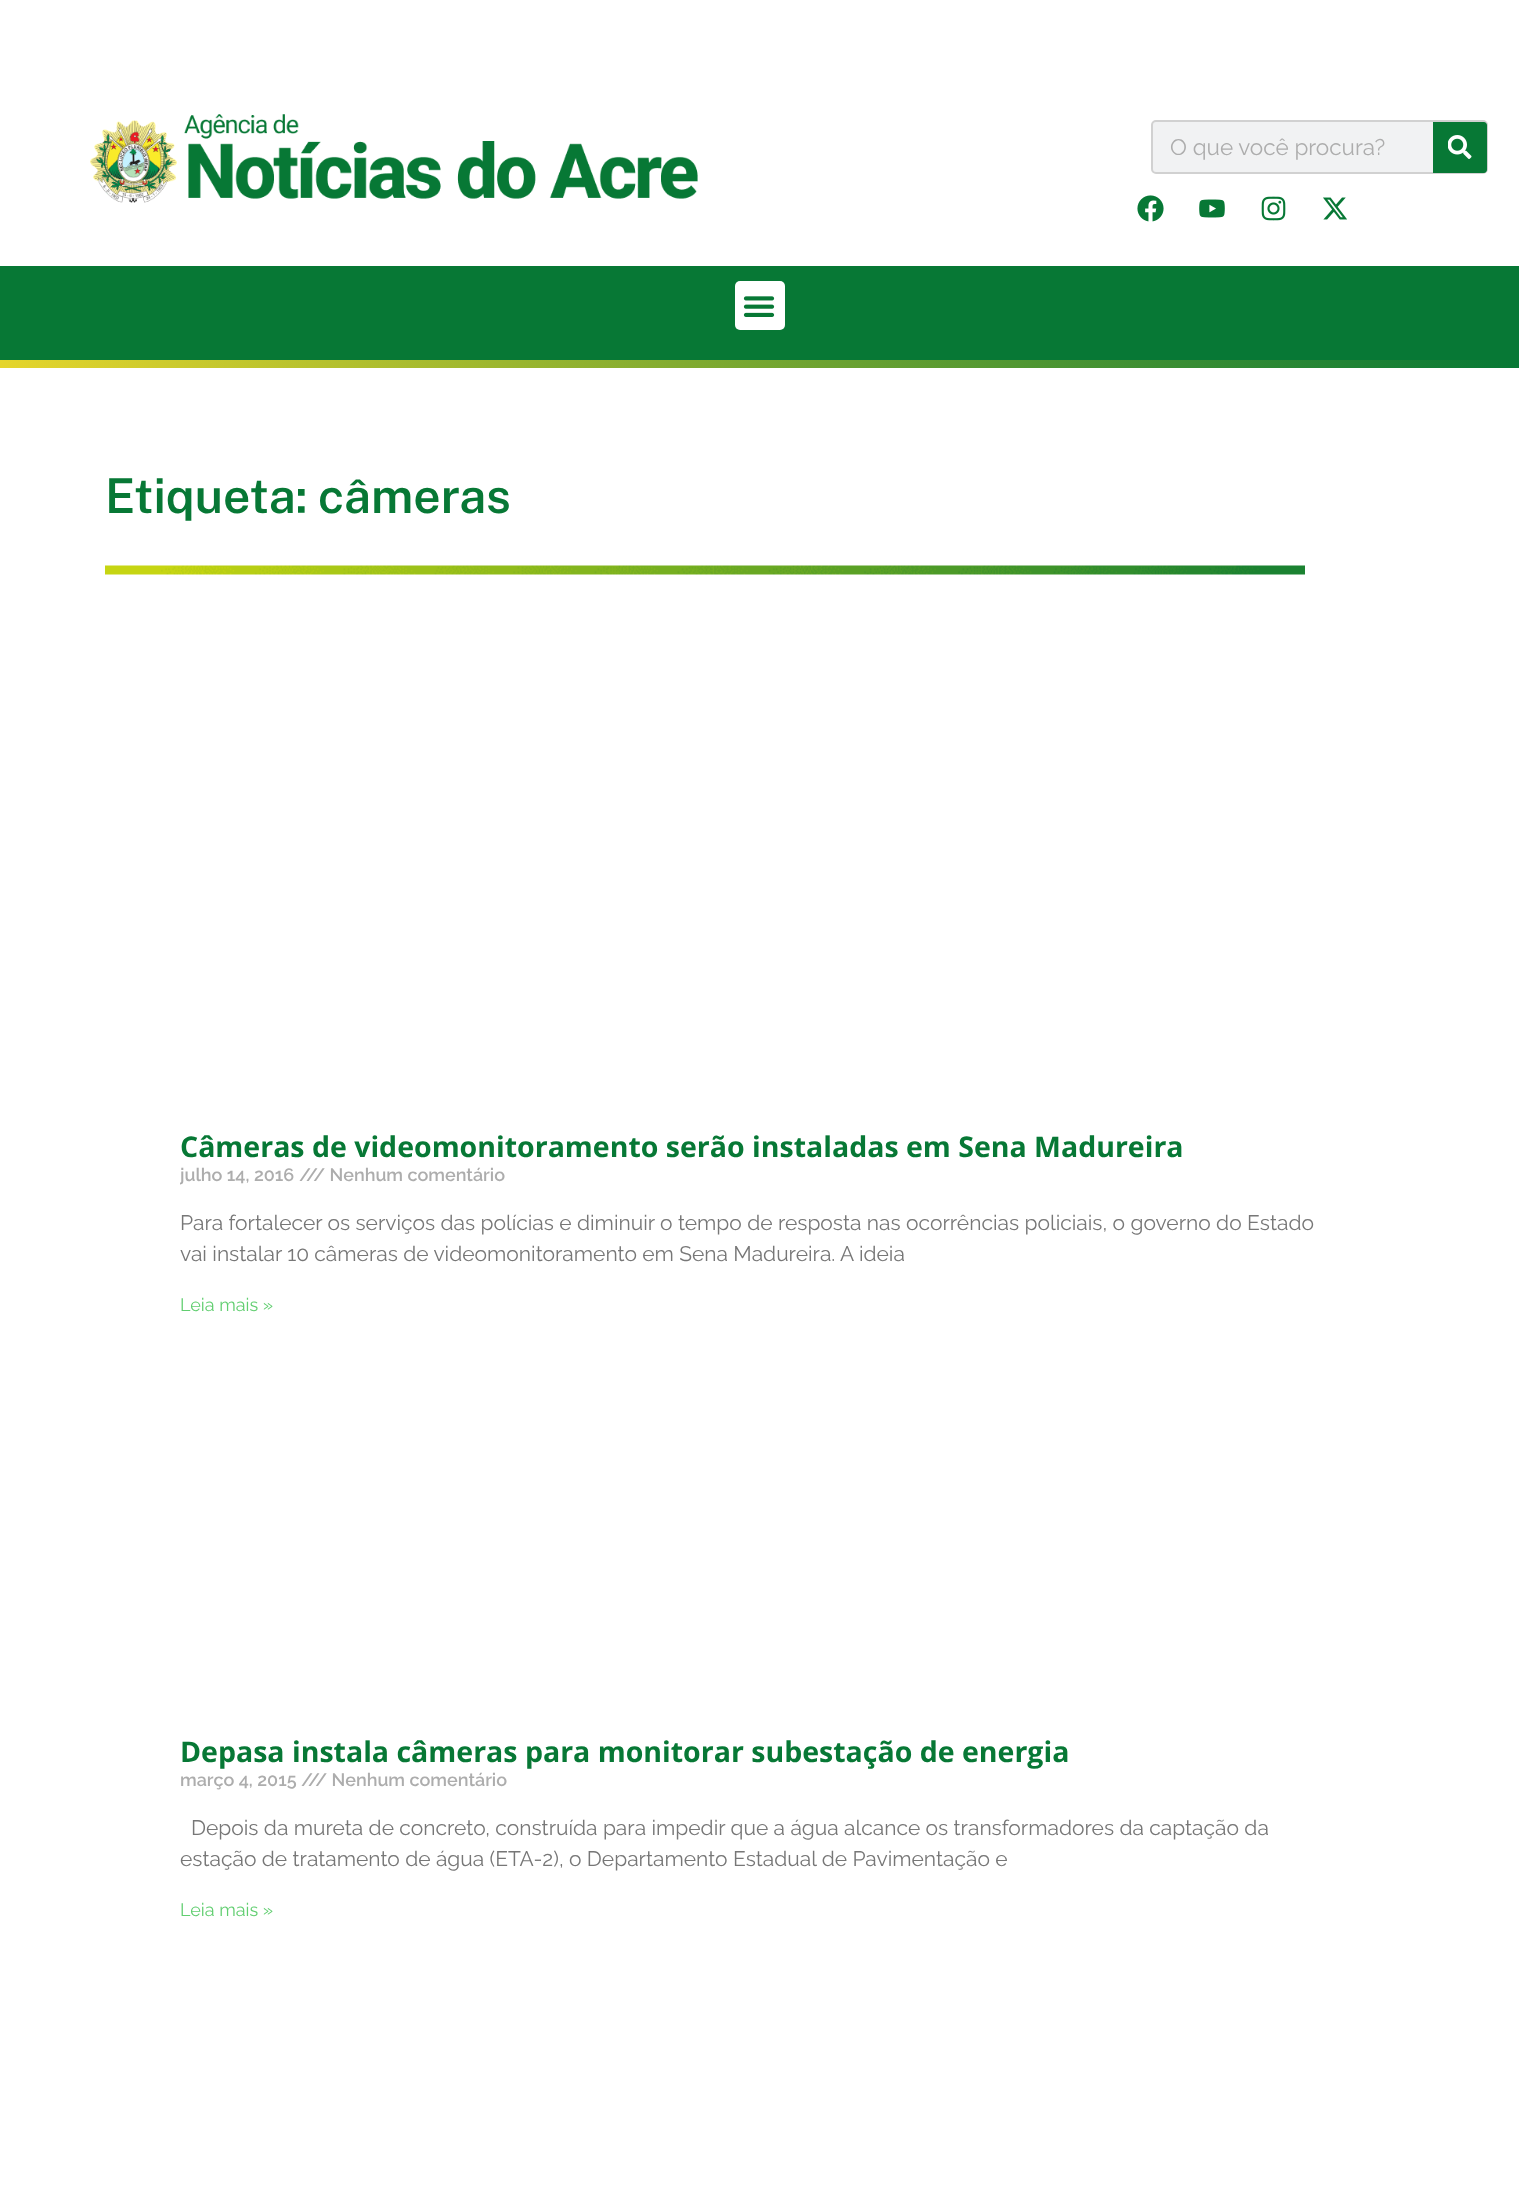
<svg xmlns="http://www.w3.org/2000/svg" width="1519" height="2190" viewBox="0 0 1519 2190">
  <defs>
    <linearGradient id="g1" gradientUnits="userSpaceOnUse" x1="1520" y1="364" x2="0" y2="364"><stop offset="0" stop-color="rgb(7,120,53)"/><stop offset="1" stop-color="rgb(229,213,44)"/></linearGradient>
    <clipPath id="clip1"><rect x="180" y="692" width="1160" height="630"/></clipPath>
  </defs>
  <rect width="100%" height="100%" fill="rgb(255,255,255)"/>
  <image x="90" y="114" width="608" height="89" href="pic1.png"/>
  <rect x="1152" y="121" width="335" height="52" rx="4" fill="rgb(241,242,243)" stroke="rgb(209,209,209)" stroke-width="2"/>
  <text x="1170" y="155" font-family="Raleway" font-size="22.5" fill="rgb(173,173,173)">O que você procura?</text>
  <path d="M1433 122H1484C1485.5 122 1487 123.5 1487 125V170C1487 171.5 1485.5 173 1484 173H1433Z" fill="rgb(7,120,53)"/>
  <image x="1448" y="135" width="24" height="24" href="pic2.png"/>
  <image x="1137" y="195" width="27" height="27" href="pic3.png"/>
  <image x="1199" y="199" width="26" height="19" href="pic4.png"/>
  <image x="1261" y="196" width="25" height="25" href="pic5.png"/>
  <image x="1323" y="197" width="24" height="23" href="pic6.png"/>
  <rect x="0" y="266" width="1519" height="94" fill="rgb(7,120,53)"/>
  <rect x="735" y="281" width="50" height="49" rx="5" fill="rgb(255,255,255)"/>
  <image x="743" y="296" width="32" height="21" href="pic7.png"/>
  <rect x="0" y="360" width="1519" height="8" fill="url(#g1)"/>
  <text x="105" y="513" font-family="Public Sans" font-size="48" font-weight="600" fill="rgb(7,120,53)">Etiqueta: câmeras</text>
  <image x="105" y="565" width="1200" height="10" href="pic8.png"/>
  <text x="180" y="1157" font-family="Open Sans" font-size="28.5" font-weight="bold" fill="rgb(7,120,53)">Câmeras de videomonitoramento serão instaladas em Sena Madureira</text>
  <g clip-path="url(#clip1)">
    <text x="180" y="1181" font-family="Raleway" font-size="18" font-weight="600" fill="rgb(173,173,173)">julho 14, 2016</text>
  </g>
  <text x="299" y="1181" font-family="Raleway" font-size="18" font-weight="600" fill="rgb(173,173,173)">/// Nenhum comentário</text>
  <g font-family="Raleway" font-size="21" fill="rgb(119,119,119)">
    <text>
      <tspan x="180" y="1230">Para fortalecer os serviços das polícias e diminuir o tempo de resposta nas ocorrências policiais, o governo do Estado</tspan>
      <tspan x="180" y="1261">vai instalar 10 câmeras de videomonitoramento em Sena Madureira. A ideia</tspan>
    </text>
  </g>
  <text x="180" y="1311" font-family="Raleway" font-size="18" fill="rgb(97,206,112)">Leia mais »</text>
  <text x="180" y="1762" font-family="Open Sans" font-size="28.5" font-weight="bold" fill="rgb(7,120,53)">Depasa instala câmeras para monitorar subestação de energia</text>
  <text x="180" y="1786" font-family="Raleway" font-size="18" font-weight="600" fill="rgb(173,173,173)">março 4, 2015 /// Nenhum comentário</text>
  <g font-family="Raleway" font-size="21" fill="rgb(119,119,119)">
    <text x="191" y="1835">Depois da mureta de concreto, construída para impedir que a água alcance os transformadores da captação da</text>
    <text x="180" y="1866">estação de tratamento de água (ETA-2), o Departamento Estadual de Pavimentação e</text>
  </g>
  <text x="180" y="1916" font-family="Raleway" font-size="18" fill="rgb(97,206,112)">Leia mais »</text>
</svg>
